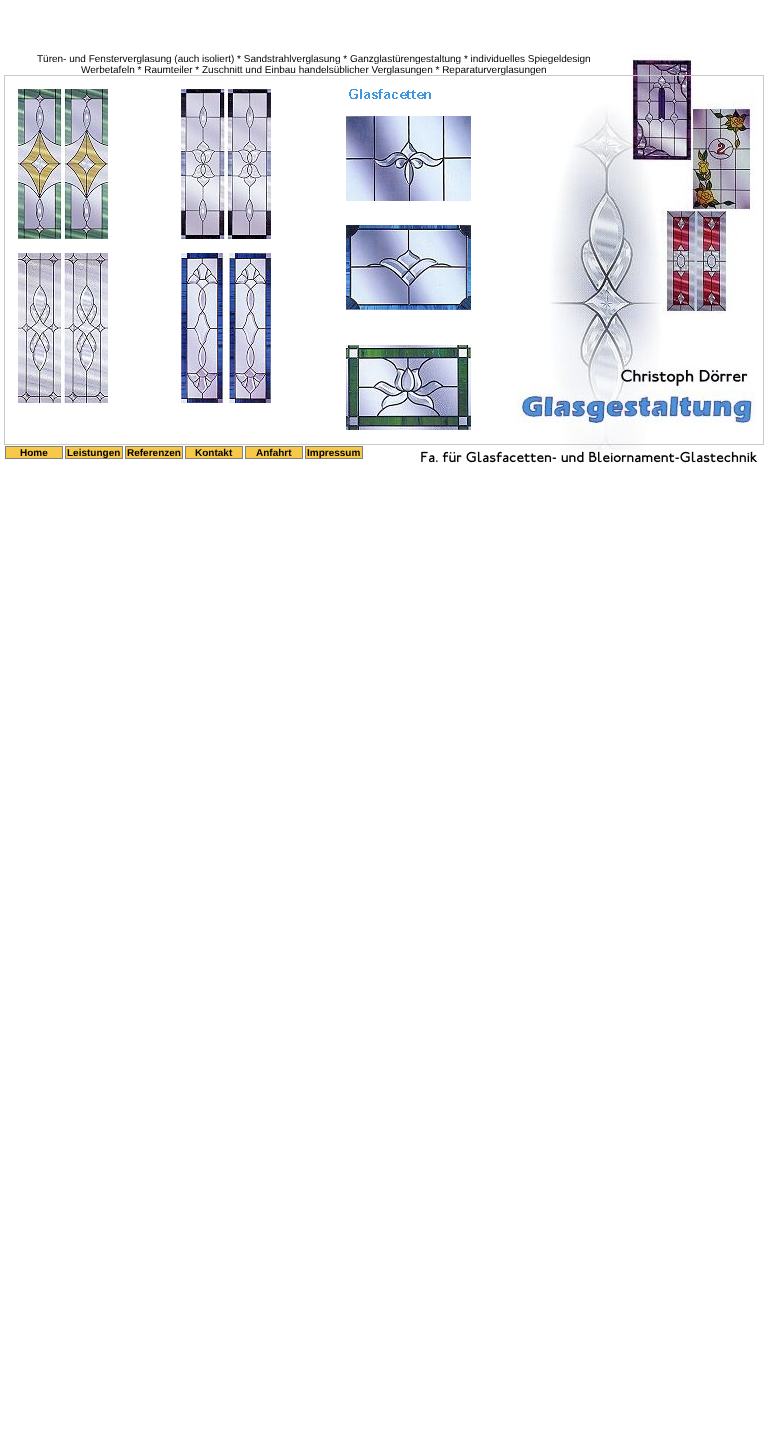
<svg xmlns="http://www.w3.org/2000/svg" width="768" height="1439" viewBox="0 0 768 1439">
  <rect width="100%" height="100%" fill="rgb(255,255,255)"/>
  <image x="516" y="54" width="240" height="396" href="pic1.png"/>
  <text x="37" y="62" font-family="Liberation Sans" font-size="10" fill="rgb(0,0,0)">Türen- und Fensterverglasung (auch isoliert) * Sandstrahlverglasung * Ganzglastürengestaltung * individuelles Spiegeldesign</text>
  <rect x="4.5" y="75.5" width="759" height="369" fill="none" stroke="rgb(203,201,196)"/>
  <text x="81" y="73" font-family="Liberation Sans" font-size="10" fill="rgb(0,0,0)">Werbetafeln * Raumteiler * Zuschnitt und Einbau handelsüblicher Verglasungen * Reparaturverglasungen</text>
  <image x="18" y="89" width="90" height="150" href="pic2.png"/>
  <image x="181" y="89" width="90" height="150" href="pic3.png"/>
  <image x="18" y="253" width="90" height="150" href="pic4.png"/>
  <image x="181" y="253" width="90" height="150" href="pic5.png"/>
  <image x="349" y="89" width="82" height="10" href="pic6.png"/>
  <image x="346" y="116" width="125" height="85" href="pic7.png"/>
  <image x="346" y="225" width="125" height="85" href="pic8.png"/>
  <image x="346" y="345" width="125" height="85" href="pic9.png"/>
  <rect x="5.5" y="446.5" width="57" height="12" fill="rgb(248,201,73)" stroke="rgb(128,128,128)"/>
  <text x="20" y="456" font-family="Liberation Sans" font-size="10" font-weight="bold" fill="rgb(0,0,0)">Home</text>
  <rect x="65.5" y="446.5" width="57" height="12" fill="rgb(248,201,73)" stroke="rgb(128,128,128)"/>
  <text x="67" y="456" font-family="Liberation Sans" font-size="10" font-weight="bold" fill="rgb(0,0,0)">Leistungen</text>
  <rect x="125.5" y="446.5" width="57" height="12" fill="rgb(248,201,73)" stroke="rgb(128,128,128)"/>
  <text x="127" y="456" font-family="Liberation Sans" font-size="10" font-weight="bold" fill="rgb(0,0,0)">Referenzen</text>
  <rect x="185.5" y="446.5" width="57" height="12" fill="rgb(248,201,73)" stroke="rgb(128,128,128)"/>
  <text x="195" y="456" font-family="Liberation Sans" font-size="10" font-weight="bold" fill="rgb(0,0,0)">Kontakt</text>
  <rect x="245.5" y="446.5" width="57" height="12" fill="rgb(248,201,73)" stroke="rgb(128,128,128)"/>
  <text x="256" y="456" font-family="Liberation Sans" font-size="10" font-weight="bold" fill="rgb(0,0,0)">Anfahrt</text>
  <rect x="305.5" y="446.5" width="57" height="12" fill="rgb(248,201,73)" stroke="rgb(128,128,128)"/>
  <text x="307" y="456" font-family="Liberation Sans" font-size="10" font-weight="bold" fill="rgb(0,0,0)">Impressum</text>
  <image x="421" y="451" width="337" height="12" href="pic10.png"/>
</svg>
